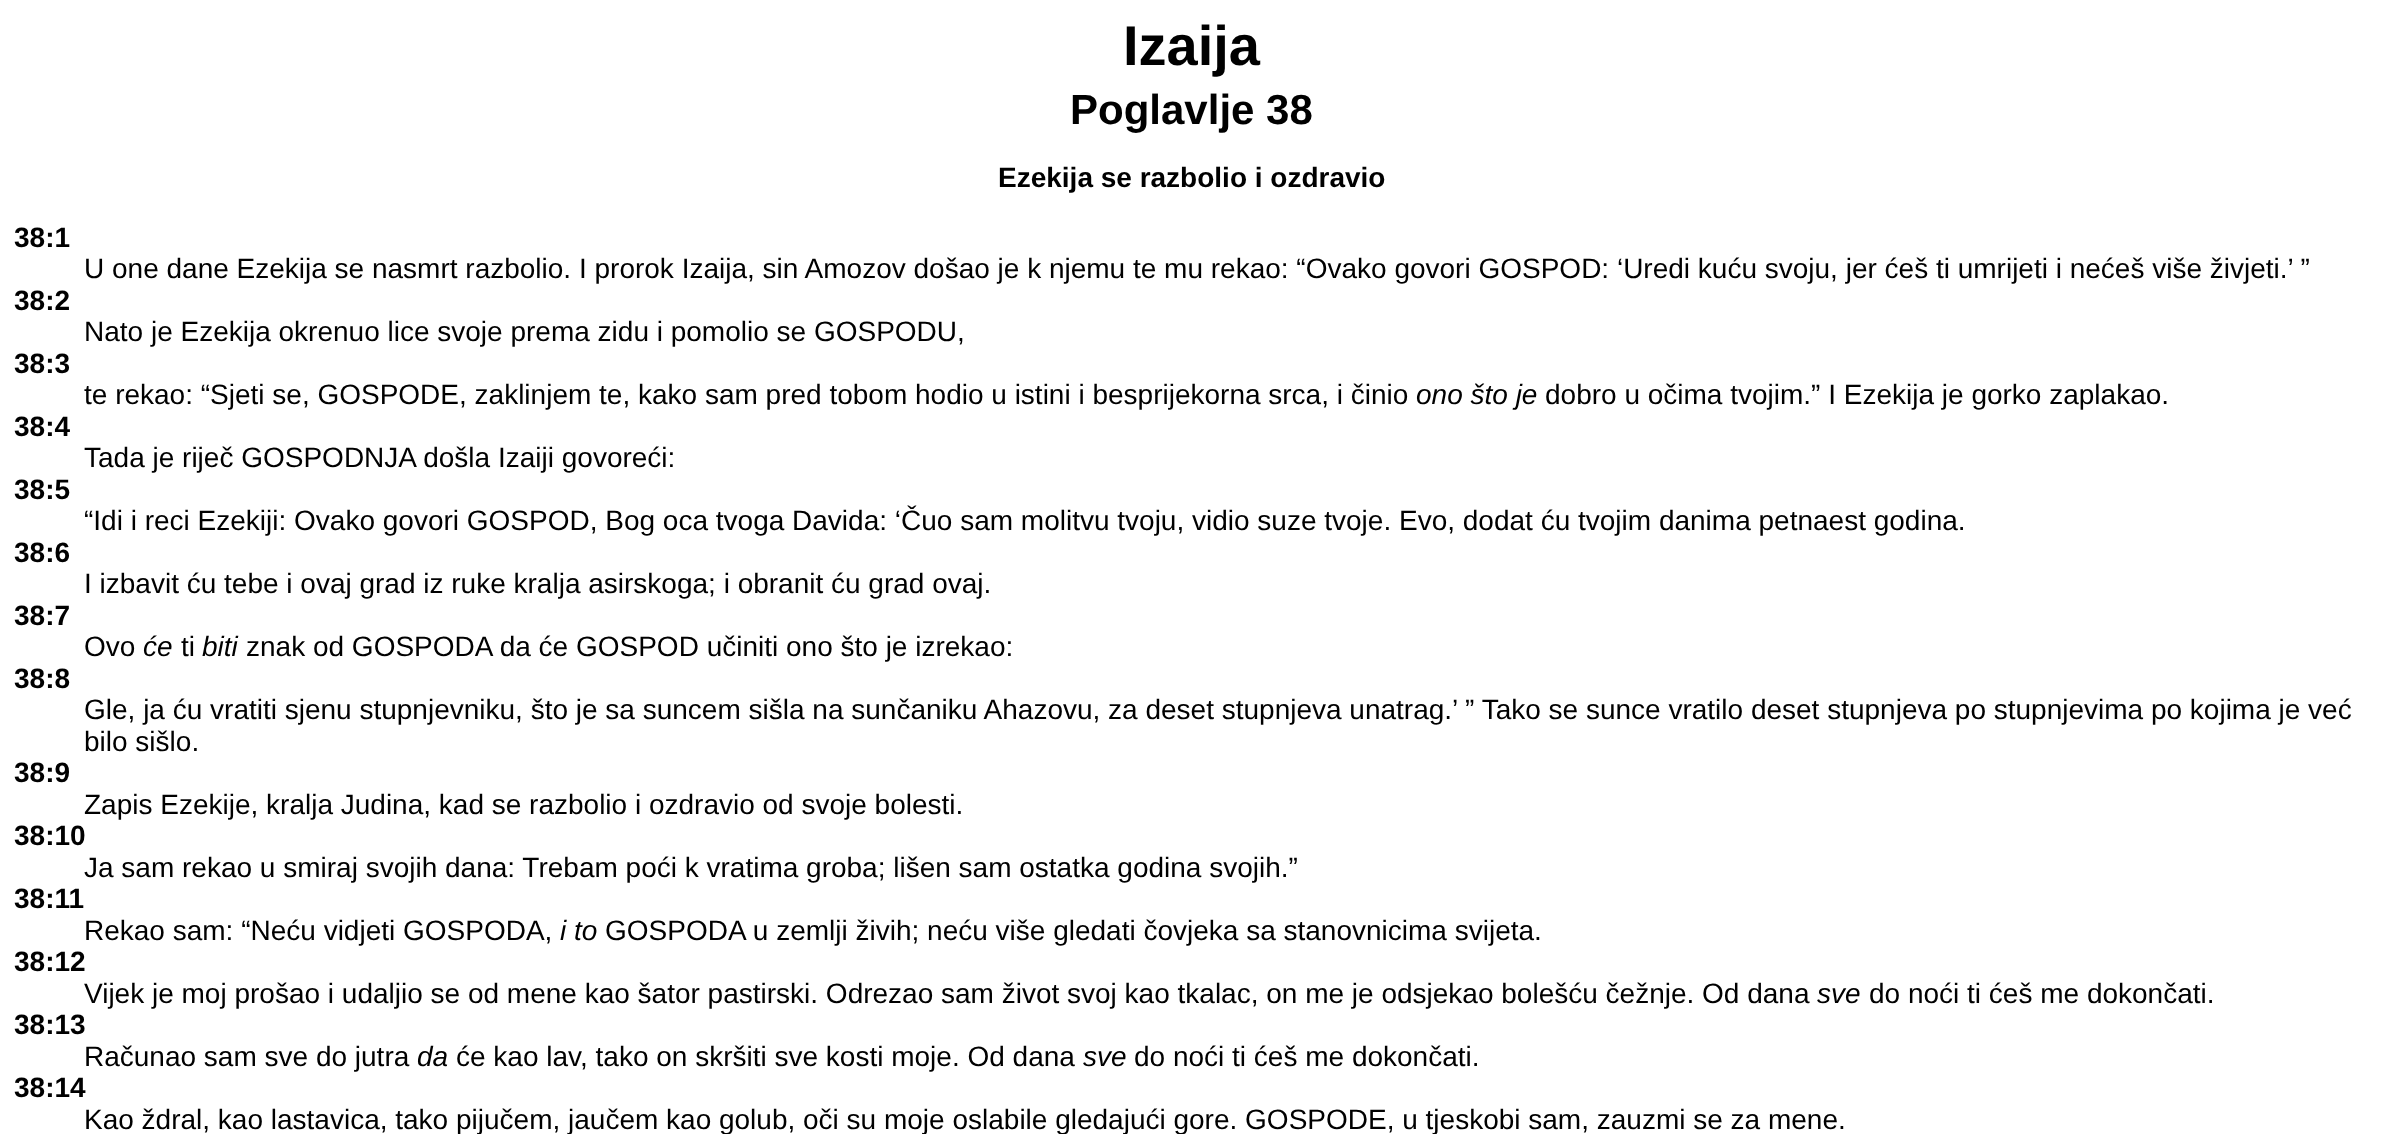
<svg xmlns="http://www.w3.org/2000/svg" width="2383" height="1134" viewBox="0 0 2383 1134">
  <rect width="100%" height="100%" fill="rgb(255,255,255)"/>
  <text x="1123" y="65" font-family="Liberation Sans" font-size="56" font-weight="bold" fill="rgb(0,0,0)">Izaija</text>
  <text x="1070" y="124" font-family="Liberation Sans" font-size="42" font-weight="bold" fill="rgb(0,0,0)">Poglavlje 38</text>
  <g font-family="Liberation Sans" font-size="28" font-weight="bold" fill="rgb(0,0,0)">
    <text x="998" y="187">Ezekija se razbolio i ozdravio</text>
    <text x="14" y="247">38:1</text>
  </g>
  <text x="84" y="278" font-family="Liberation Sans" font-size="28" fill="rgb(0,0,0)">U one dane Ezekija se nasmrt razbolio. I prorok Izaija, sin Amozov došao je k njemu te mu rekao: “Ovako govori GOSPOD: ‘Uredi kuću svoju, jer ćeš ti umrijeti i nećeš više živjeti.’ ”</text>
  <text x="14" y="310" font-family="Liberation Sans" font-size="28" font-weight="bold" fill="rgb(0,0,0)">38:2</text>
  <text x="84" y="341" font-family="Liberation Sans" font-size="28" fill="rgb(0,0,0)">Nato je Ezekija okrenuo lice svoje prema zidu i pomolio se GOSPODU,</text>
  <text x="14" y="373" font-family="Liberation Sans" font-size="28" font-weight="bold" fill="rgb(0,0,0)">38:3</text>
  <text x="84" y="404" font-family="Liberation Sans" font-size="28" fill="rgb(0,0,0)">te rekao: “Sjeti se, GOSPODE, zaklinjem te, kako sam pred tobom hodio u istini i besprijekorna srca, i činio</text>
  <text x="1416" y="404" font-family="Liberation Sans" font-size="28" font-style="italic" fill="rgb(0,0,0)">ono što je</text>
  <text x="1545" y="404" font-family="Liberation Sans" font-size="28" fill="rgb(0,0,0)">dobro u očima tvojim.” I Ezekija je gorko zaplakao.</text>
  <text x="14" y="436" font-family="Liberation Sans" font-size="28" font-weight="bold" fill="rgb(0,0,0)">38:4</text>
  <text x="84" y="467" font-family="Liberation Sans" font-size="28" fill="rgb(0,0,0)">Tada je riječ GOSPODNJA došla Izaiji govoreći:</text>
  <text x="14" y="499" font-family="Liberation Sans" font-size="28" font-weight="bold" fill="rgb(0,0,0)">38:5</text>
  <text x="84" y="530" font-family="Liberation Sans" font-size="28" fill="rgb(0,0,0)">“Idi i reci Ezekiji: Ovako govori GOSPOD, Bog oca tvoga Davida: ‘Čuo sam molitvu tvoju, vidio suze tvoje. Evo, dodat ću tvojim danima petnaest godina.</text>
  <text x="14" y="562" font-family="Liberation Sans" font-size="28" font-weight="bold" fill="rgb(0,0,0)">38:6</text>
  <text x="84" y="593" font-family="Liberation Sans" font-size="28" fill="rgb(0,0,0)">I izbavit ću tebe i ovaj grad iz ruke kralja asirskoga; i obranit ću grad ovaj.</text>
  <text x="14" y="625" font-family="Liberation Sans" font-size="28" font-weight="bold" fill="rgb(0,0,0)">38:7</text>
  <text x="84" y="656" font-family="Liberation Sans" font-size="28" fill="rgb(0,0,0)">Ovo</text>
  <text x="143" y="656" font-family="Liberation Sans" font-size="28" font-style="italic" fill="rgb(0,0,0)">će</text>
  <text x="181" y="656" font-family="Liberation Sans" font-size="28" fill="rgb(0,0,0)">ti</text>
  <text x="202" y="656" font-family="Liberation Sans" font-size="28" font-style="italic" fill="rgb(0,0,0)">biti</text>
  <text x="246" y="656" font-family="Liberation Sans" font-size="28" fill="rgb(0,0,0)">znak od GOSPODA da će GOSPOD učiniti ono što je izrekao:</text>
  <text x="14" y="688" font-family="Liberation Sans" font-size="28" font-weight="bold" fill="rgb(0,0,0)">38:8</text>
  <g font-family="Liberation Sans" font-size="28" fill="rgb(0,0,0)">
    <text>
      <tspan x="84" y="719">Gle, ja ću vratiti sjenu stupnjevniku, što je sa suncem sišla na sunčaniku Ahazovu, za deset stupnjeva unatrag.’ ” Tako se sunce vratilo deset stupnjeva po stupnjevima po kojima je već</tspan>
      <tspan x="84" y="751">bilo sišlo.</tspan>
    </text>
  </g>
  <text x="14" y="782" font-family="Liberation Sans" font-size="28" font-weight="bold" fill="rgb(0,0,0)">38:9</text>
  <text x="84" y="814" font-family="Liberation Sans" font-size="28" fill="rgb(0,0,0)">Zapis Ezekije, kralja Judina, kad se razbolio i ozdravio od svoje bolesti.</text>
  <text x="14" y="845" font-family="Liberation Sans" font-size="28" font-weight="bold" fill="rgb(0,0,0)">38:10</text>
  <text x="84" y="877" font-family="Liberation Sans" font-size="28" fill="rgb(0,0,0)">Ja sam rekao u smiraj svojih dana: Trebam poći k vratima groba; lišen sam ostatka godina svojih.”</text>
  <text x="14" y="908" font-family="Liberation Sans" font-size="28" font-weight="bold" fill="rgb(0,0,0)">38:11</text>
  <text x="84" y="940" font-family="Liberation Sans" font-size="28" fill="rgb(0,0,0)">Rekao sam: “Neću vidjeti GOSPODA,</text>
  <text x="560" y="940" font-family="Liberation Sans" font-size="28" font-style="italic" fill="rgb(0,0,0)">i to</text>
  <text x="605" y="940" font-family="Liberation Sans" font-size="28" fill="rgb(0,0,0)">GOSPODA u zemlji živih; neću više gledati čovjeka sa stanovnicima svijeta.</text>
  <text x="14" y="971" font-family="Liberation Sans" font-size="28" font-weight="bold" fill="rgb(0,0,0)">38:12</text>
  <text x="84" y="1003" font-family="Liberation Sans" font-size="28" fill="rgb(0,0,0)">Vijek je moj prošao i udaljio se od mene kao šator pastirski. Odrezao sam život svoj kao tkalac, on me je odsjekao bolešću čežnje. Od dana</text>
  <text x="1817" y="1003" font-family="Liberation Sans" font-size="28" font-style="italic" fill="rgb(0,0,0)">sve</text>
  <text x="1869" y="1003" font-family="Liberation Sans" font-size="28" fill="rgb(0,0,0)">do noći ti ćeš me dokončati.</text>
  <text x="14" y="1034" font-family="Liberation Sans" font-size="28" font-weight="bold" fill="rgb(0,0,0)">38:13</text>
  <text x="84" y="1066" font-family="Liberation Sans" font-size="28" fill="rgb(0,0,0)">Računao sam sve do jutra</text>
  <text x="417" y="1066" font-family="Liberation Sans" font-size="28" font-style="italic" fill="rgb(0,0,0)">da</text>
  <text x="456" y="1066" font-family="Liberation Sans" font-size="28" fill="rgb(0,0,0)">će kao lav, tako on skršiti sve kosti moje. Od dana</text>
  <text x="1083" y="1066" font-family="Liberation Sans" font-size="28" font-style="italic" fill="rgb(0,0,0)">sve</text>
  <text x="1134" y="1066" font-family="Liberation Sans" font-size="28" fill="rgb(0,0,0)">do noći ti ćeš me dokončati.</text>
  <text x="14" y="1097" font-family="Liberation Sans" font-size="28" font-weight="bold" fill="rgb(0,0,0)">38:14</text>
  <text x="84" y="1129" font-family="Liberation Sans" font-size="28" fill="rgb(0,0,0)">Kao ždral, kao lastavica, tako pijučem, jaučem kao golub, oči su moje oslabile gledajući gore. GOSPODE, u tjeskobi sam, zauzmi se za mene.</text>
</svg>
